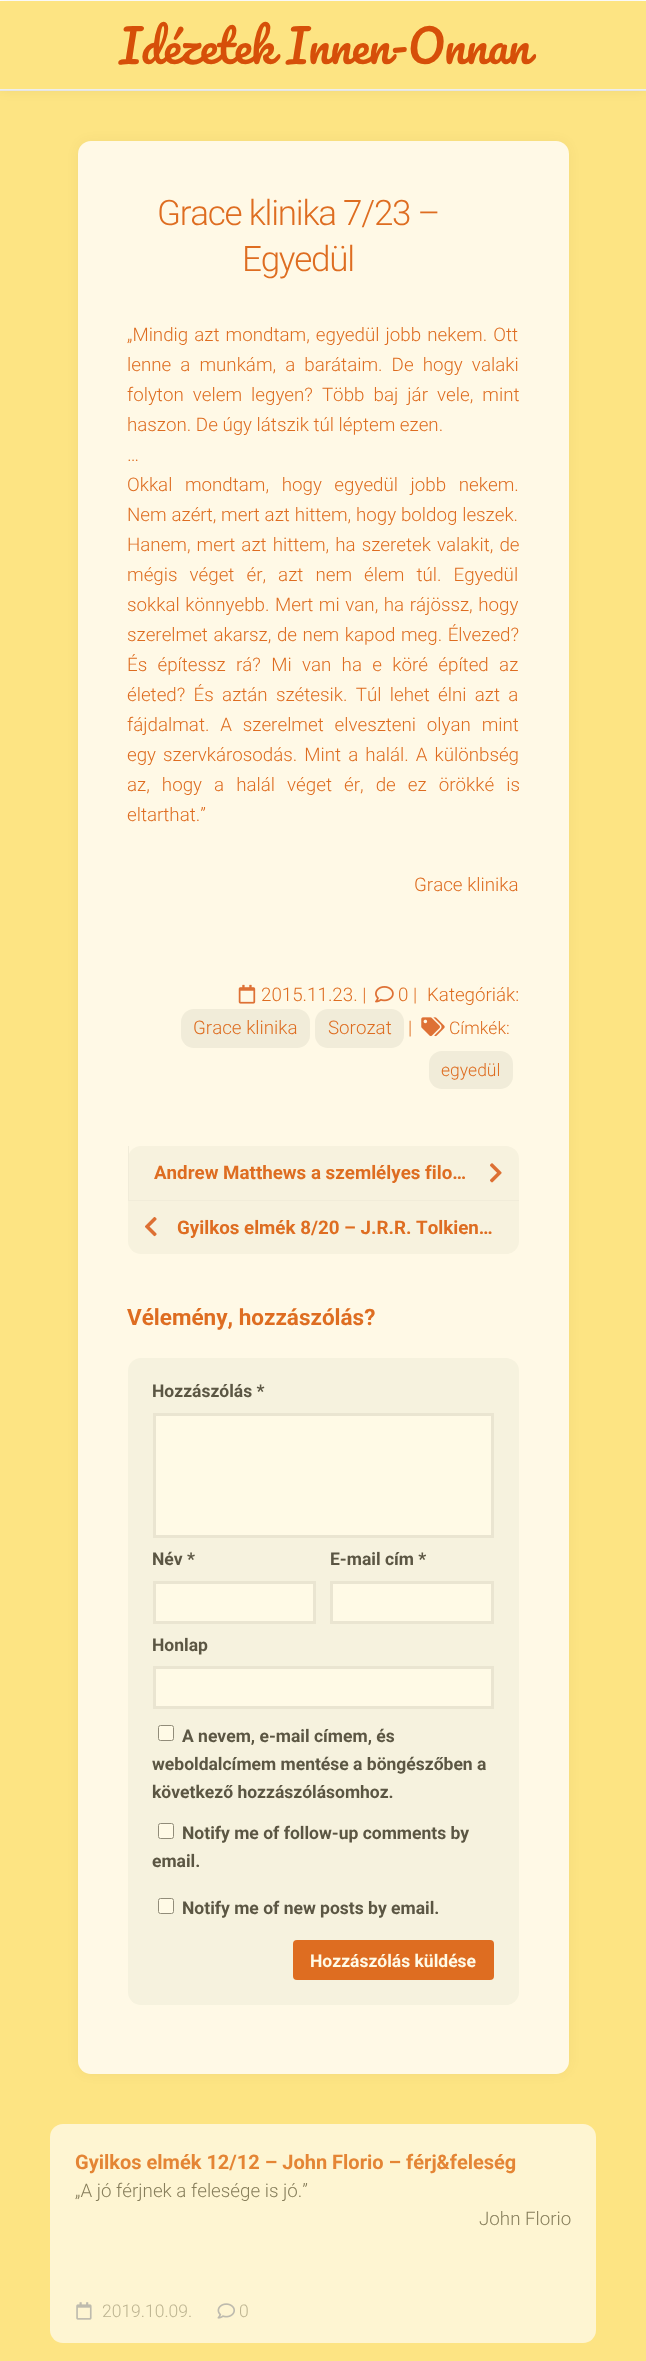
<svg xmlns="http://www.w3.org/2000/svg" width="646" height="2361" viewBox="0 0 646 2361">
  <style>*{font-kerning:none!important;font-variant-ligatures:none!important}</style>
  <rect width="100%" height="100%" fill="rgb(253,228,131)"/>
  <rect x="0" y="0" width="646" height="1" fill="rgb(255,255,255)"/>
  <rect x="0" y="1" width="646" height="90" fill="rgba(0,0,0,0.05)" filter="blur(6px)"/>
  <rect x="0" y="1" width="646" height="88" fill="rgb(253,228,131)"/>
  <rect x="0" y="90" width="646" height="1" fill="rgb(229,229,229)"/>
  <rect x="0" y="89" width="646" height="1" fill="rgb(238,238,238)"/>
  <text x="119" y="64" word-spacing="1" font-family="Pacifico" font-size="45" letter-spacing="-0.6" fill="rgb(214,79,9)">Idézetek Innen-Onnan</text>
  <rect x="78" y="141" width="491" height="1933" rx="13" fill="rgba(51,46,26,0.05)" filter="blur(6px)"/>
  <rect x="78" y="141" width="491" height="1933" rx="13" fill="rgb(255,249,230)"/>
  <g font-family="Roboto" font-size="35" font-weight="300" letter-spacing="-1.25" fill="rgb(222,109,33)">
    <text x="157" y="225">Grace klinika 7/23 –</text>
    <text x="242" y="271">Egyedül</text>
  </g>
  <g font-family="Roboto" font-size="18.75" font-weight="300" fill="rgb(222,109,33)">
    <text>
      <tspan x="127" y="341" word-spacing="1.5">„Mindig azt mondtam, egyedül jobb nekem. Ott</tspan>
      <tspan x="127" y="371" word-spacing="4.5">lenne a munkám, a barátaim. De hogy valaki</tspan>
      <tspan x="127" y="401" word-spacing="4.5">folyton velem legyen? Több baj jár vele, mint</tspan>
      <tspan x="127" y="431">haszon. De úgy látszik túl léptem ezen.</tspan>
      <tspan x="127" y="461">…</tspan>
      <tspan x="127" y="491" word-spacing="8">Okkal mondtam, hogy egyedül jobb nekem.</tspan>
      <tspan x="127" y="521" word-spacing="0.25">Nem azért, mert azt hittem, hogy boldog leszek.</tspan>
      <tspan x="127" y="551" word-spacing="1.5">Hanem, mert azt hittem, ha szeretek valakit, de</tspan>
      <tspan x="127" y="581" word-spacing="7.5">mégis véget ér, azt nem élem túl. Egyedül</tspan>
      <tspan x="127" y="611" word-spacing="1">sokkal könnyebb. Mert mi van, ha rájössz, hogy</tspan>
      <tspan x="127" y="641" word-spacing="1">szerelmet akarsz, de nem kapod meg. Élvezed?</tspan>
      <tspan x="127" y="671" word-spacing="5.75">És építessz rá? Mi van ha e köré építed az</tspan>
      <tspan x="127" y="701" word-spacing="3.75">életed? És aztán szétesik. Túl lehet élni azt a</tspan>
      <tspan x="127" y="731" word-spacing="6.25">fájdalmat. A szerelmet elveszteni olyan mint</tspan>
      <tspan x="127" y="761" word-spacing="2.5">egy szervkárosodás. Mint a halál. A különbség</tspan>
      <tspan x="127" y="791" word-spacing="7.5">az, hogy a halál véget ér, de ez örökké is</tspan>
      <tspan x="127" y="821">eltarthat.”</tspan>
    </text>
    <text x="414" y="891">Grace klinika</text>
    <text x="427" y="1001">Kategóriák:</text>
  </g>
  <rect x="181" y="1009" width="129" height="39" rx="13" fill="rgb(241,236,217)"/>
  <text x="193" y="1034" font-family="Roboto" font-size="18.75" font-weight="300" fill="rgb(222,109,33)">Grace klinika</text>
  <rect x="315" y="1009" width="89" height="39" rx="13" fill="rgb(241,236,217)"/>
  <text x="328" y="1034" font-family="Roboto" font-size="18.75" font-weight="300" fill="rgb(222,109,33)">Sorozat</text>
  <image x="238" y="984" width="18" height="20" href="pic1.png"/>
  <text x="261" y="1001" font-family="Roboto" font-size="18.75" font-weight="300" fill="rgb(222,109,33)">2015.11.23. |</text>
  <image x="375" y="986" width="19" height="17" href="pic2.png"/>
  <g font-family="Roboto" font-size="18.75" font-weight="300" fill="rgb(222,109,33)">
    <text x="398" y="1001">0 |</text>
    <text x="408" y="1034">|</text>
  </g>
  <image x="421" y="1017" width="24" height="20" href="pic3.png"/>
  <text x="449" y="1034" font-family="Roboto" font-size="17.5" font-weight="300" fill="rgb(222,109,33)">Címkék:</text>
  <rect x="429" y="1051" width="84" height="38" rx="13" fill="rgb(241,236,217)"/>
  <text x="441" y="1076" font-family="Roboto" font-size="17.5" font-weight="300" fill="rgb(222,109,33)">egyedül</text>
  <rect x="128" y="1146" width="391" height="108" rx="13" fill="rgb(247,242,222)"/>
  <rect x="128" y="1146" width="1" height="54" fill="rgb(241,236,217)"/>
  <text x="154" y="1179" font-family="Roboto" font-size="18.75" font-weight="bold" fill="rgb(222,109,33)">Andrew Matthews a szemlélyes filo…</text>
  <image x="490" y="1163" width="12" height="20" href="pic4.png"/>
  <rect x="128" y="1200" width="391" height="1" fill="rgb(241,236,217)"/>
  <image x="145" y="1217" width="12" height="20" href="pic5.png"/>
  <text x="177" y="1234" font-family="Roboto" font-size="18.75" font-weight="bold" fill="rgb(222,109,33)">Gyilkos elmék 8/20 – J.R.R. Tolkien…</text>
  <text x="127" y="1325" font-family="Roboto" font-size="22.5" font-weight="bold" fill="rgb(222,109,33)">Vélemény, hozzászólás?</text>
  <rect x="128" y="1358" width="391" height="647" rx="13" fill="rgb(246,242,222)"/>
  <text x="152" y="1397" font-family="Roboto" font-size="17.5" font-weight="bold" fill="rgb(91,86,67)">Hozzászólás *</text>
  <rect x="154.5" y="1414.5" width="338" height="122" fill="rgb(255,250,230)" stroke="rgb(234,229,209)" stroke-width="3"/>
  <text x="152" y="1565" font-family="Roboto" font-size="17.5" font-weight="bold" fill="rgb(91,86,67)">Név *</text>
  <rect x="154.5" y="1582.5" width="160" height="40" fill="rgb(255,250,230)" stroke="rgb(234,229,209)" stroke-width="3"/>
  <text x="330" y="1565" font-family="Roboto" font-size="17.5" font-weight="bold" fill="rgb(91,86,67)">E-mail cím *</text>
  <rect x="331.5" y="1582.5" width="161" height="40" fill="rgb(255,250,230)" stroke="rgb(234,229,209)" stroke-width="3"/>
  <text x="152" y="1651" font-family="Roboto" font-size="17.5" font-weight="bold" fill="rgb(91,86,67)">Honlap</text>
  <rect x="154.5" y="1667.5" width="338" height="40" fill="rgb(255,250,230)" stroke="rgb(234,229,209)" stroke-width="3"/>
  <rect x="158.5" y="1725.5" width="15" height="15" rx="2" fill="rgb(255,250,230)" stroke="rgb(145,140,121)"/>
  <g font-family="Roboto" font-size="17.5" font-weight="bold" fill="rgb(91,86,67)">
    <text x="182" y="1742">A nevem, e-mail címem, és</text>
    <text>
      <tspan x="152" y="1770">weboldalcímem mentése a böngészőben a</tspan>
      <tspan x="152" y="1798">következő hozzászólásomhoz.</tspan>
    </text>
  </g>
  <rect x="158.5" y="1823.5" width="15" height="15" rx="2" fill="rgb(255,250,230)" stroke="rgb(145,140,121)"/>
  <g font-family="Roboto" font-size="17.5" font-weight="bold" fill="rgb(91,86,67)">
    <text x="182" y="1839">Notify me of follow-up comments by</text>
    <text x="152" y="1867">email.</text>
  </g>
  <rect x="158.5" y="1898.5" width="15" height="15" rx="2" fill="rgb(255,250,230)" stroke="rgb(145,140,121)"/>
  <text x="182" y="1914" font-family="Roboto" font-size="17.5" font-weight="bold" fill="rgb(91,86,67)">Notify me of new posts by email.</text>
  <rect x="293" y="1940" width="201" height="40" rx="4" fill="rgb(222,109,33)"/>
  <text x="310" y="1967" font-family="Roboto" font-size="17.5" font-weight="bold" fill="rgb(255,250,230)">Hozzászólás küldése</text>
  <rect x="50" y="2124" width="546" height="219" rx="13" fill="rgb(254,245,210)"/>
  <text x="75" y="2169" font-family="Roboto" font-size="20" font-weight="bold" fill="rgb(228,133,53)">Gyilkos elmék 12/12 – John Florio – férj&amp;feleség</text>
  <g font-family="Roboto" font-size="18.75" font-weight="300" fill="rgb(135,126,91)">
    <text x="75" y="2197">„A jó férjnek a felesége is jó.”</text>
    <text x="479" y="2225">John Florio</text>
  </g>
  <image x="76" y="2302" width="16" height="18" href="pic6.png"/>
  <text x="102" y="2317" font-family="Roboto" font-size="17.5" font-weight="300" fill="rgb(189,180,145)">2019.10.09.</text>
  <image x="217" y="2303" width="18" height="16" href="pic7.png"/>
  <text x="239" y="2317" font-family="Roboto" font-size="17.5" font-weight="300" fill="rgb(189,180,145)">0</text>
</svg>
